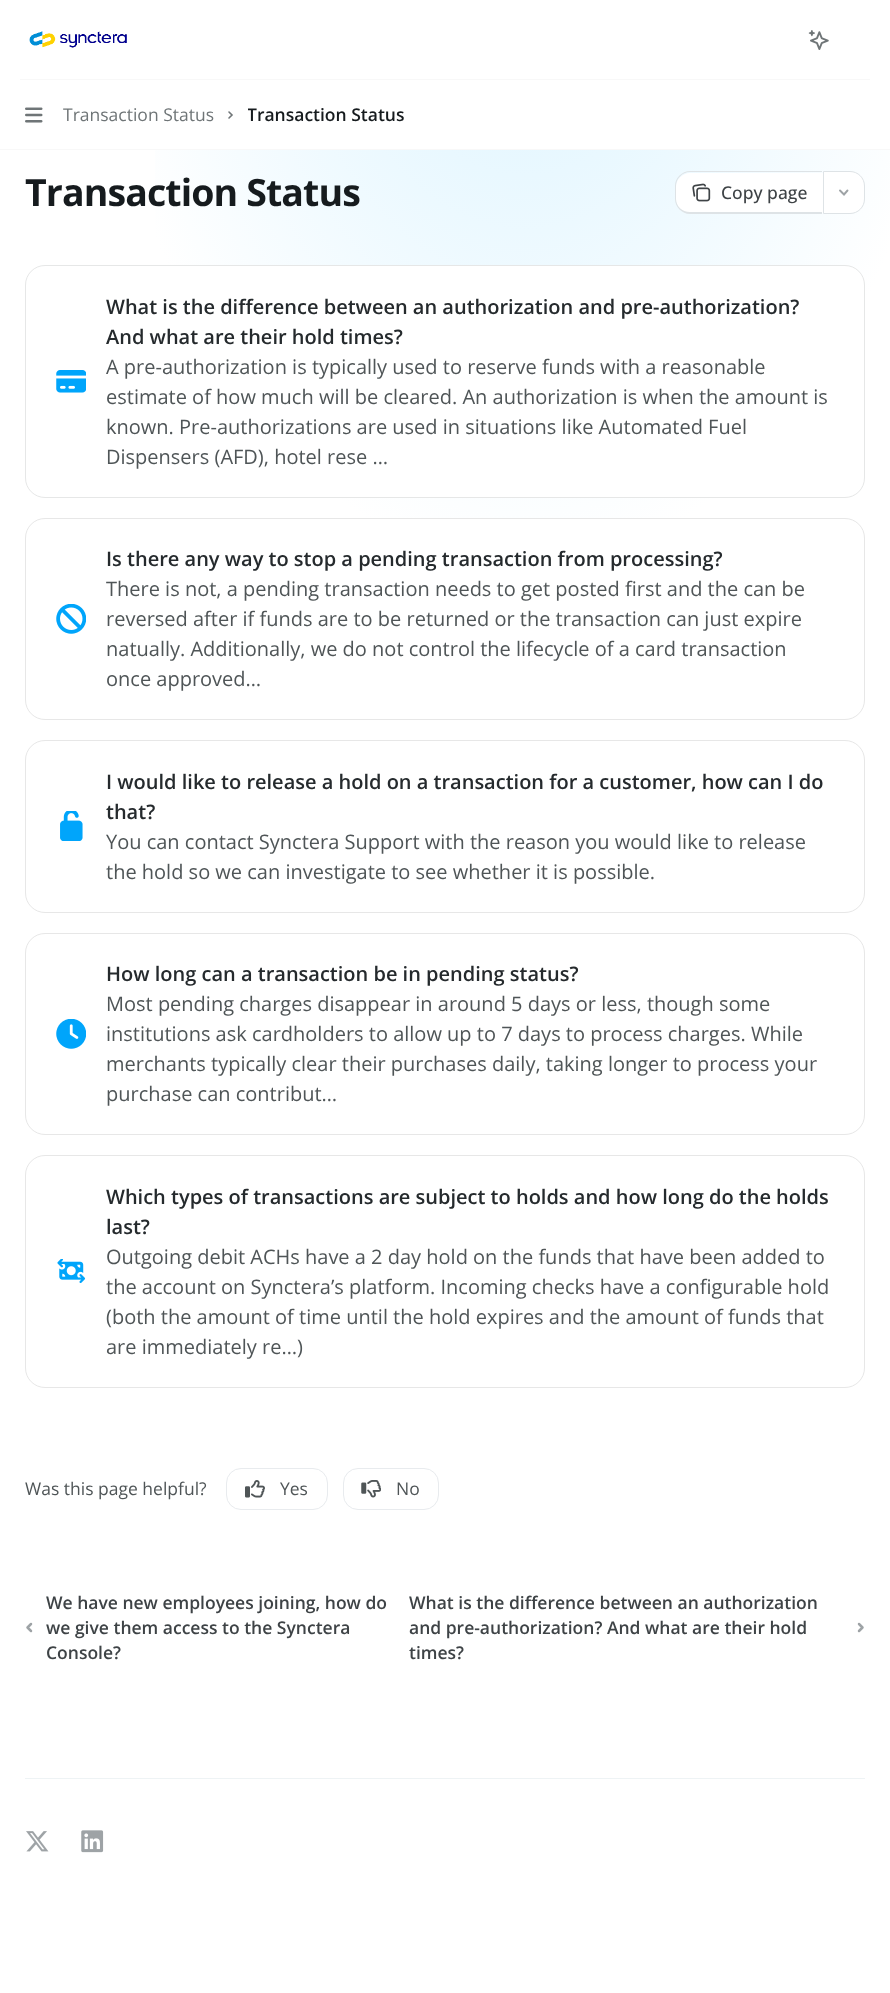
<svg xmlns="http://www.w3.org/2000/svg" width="890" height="1993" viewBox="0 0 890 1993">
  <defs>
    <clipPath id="clip1"><rect x="248" y="100" width="157" height="30"/></clipPath>
    <radialGradient id="g1" gradientUnits="userSpaceOnUse" cx="0" cy="0" r="1" gradientTransform="matrix(442 0 0 730 525 -162)"><stop offset="0.39" stop-color="rgb(230,247,255)"/><stop offset="1" stop-color="rgb(255,255,255)"/></radialGradient>
  </defs>
  <rect width="100%" height="100%" fill="rgb(255,255,255)"/>
  <rect x="20" y="79" width="850" height="1" fill="rgb(248,248,248)"/>
  <image x="29" y="31" width="98" height="17" href="pic1.png"/>
  <image x="808" y="30" width="21" height="20" href="pic2.png"/>
  <image x="25" y="107" width="18" height="16" href="pic3.png"/>
  <text x="63" y="121" font-family="Open Sans" font-size="17.5" fill="rgb(111,117,119)">Transaction Status</text>
  <path d="M229 112L232 115L229 118" fill="none" stroke="rgb(111,117,119)" stroke-width="1.6" stroke-linecap="round"/>
  <g clip-path="url(#clip1)">
    <text x="247" y="121" font-family="Open Sans" font-size="17.5" font-weight="600" fill="rgb(22,27,30)">Transaction Status</text>
  </g>
  <rect x="0" y="149" width="890" height="1" fill="rgb(248,248,248)"/>
  <rect x="155" y="150" width="735" height="374" fill="url(#g1)"/>
  <text x="25" y="206" font-family="Open Sans" font-size="37.5" font-weight="bold" letter-spacing="-0.9" fill="rgb(22,27,30)">Transaction Status</text>
  <path d="M690 173H823V213H690C682.5 213 676 206.5 676 199V187C676 179.5 682.5 173 690 173Z" fill="rgb(255,255,255)"/>
  <path d="M690 171H822V214H690C682 214 675 207 675 199V186C675 178 682 171 690 171ZM690 172H822V212H690C682 212 676 206 676 199V186C676 179 682 172 690 172Z" fill="rgb(222,227,230)" fill-rule="evenodd"/>
  <image x="692" y="183" width="19" height="19" href="pic4.png"/>
  <text x="721" y="199" font-family="Open Sans" font-size="17.5" font-weight="500" fill="rgb(62,67,70)">Copy page</text>
  <path d="M823.5 171.5H850C858 171.5 864.5 178 864.5 186V199C864.5 207 858 213.5 850 213.5H823.5Z" fill="rgb(255,255,255)" stroke="rgb(222,227,230)"/>
  <path d="M847.5 190.5L844 194.5L840 190.5" fill="none" stroke="rgb(158,163,166)" stroke-width="1.9" stroke-linecap="round"/>
  <rect x="25.5" y="265.5" width="839" height="232" rx="19.5" fill="rgb(255,255,255)" stroke="rgb(230,231,231)"/>
  <image x="56" y="370" width="30" height="23" href="pic5.png"/>
  <g font-family="Open Sans" font-size="20" font-weight="600" fill="rgb(37,42,45)">
    <text>
      <tspan x="106" y="314">What is the difference between an authorization and pre-authorization?</tspan>
      <tspan x="106" y="344">And what are their hold times?</tspan>
    </text>
  </g>
  <g font-family="Open Sans" font-size="20" fill="rgb(79,85,87)">
    <text>
      <tspan x="106" y="374">A pre-authorization is typically used to reserve funds with a reasonable</tspan>
      <tspan x="106" y="404">estimate of how much will be cleared. An authorization is when the amount is</tspan>
      <tspan x="106" y="434">known. Pre-authorizations are used in situations like Automated Fuel</tspan>
      <tspan x="106" y="464">Dispensers (AFD), hotel rese …</tspan>
    </text>
  </g>
  <rect x="25.5" y="518.5" width="839" height="201" rx="19.5" fill="rgb(255,255,255)" stroke="rgb(231,231,231)"/>
  <image x="56" y="604" width="30" height="30" href="pic6.png"/>
  <text x="106" y="566" font-family="Open Sans" font-size="20" font-weight="600" fill="rgb(37,42,45)">Is there any way to stop a pending transaction from processing?</text>
  <g font-family="Open Sans" font-size="20" fill="rgb(79,85,87)">
    <text>
      <tspan x="106" y="596">There is not, a pending transaction needs to get posted first and the can be</tspan>
      <tspan x="106" y="626">reversed after if funds are to be returned or the transaction can just expire</tspan>
      <tspan x="106" y="656">natually. Additionally, we do not control the lifecycle of a card transaction</tspan>
      <tspan x="106" y="686">once approved…</tspan>
    </text>
  </g>
  <rect x="25.5" y="740.5" width="839" height="172" rx="19.5" fill="none" stroke="rgb(231,231,231)"/>
  <image x="60" y="811" width="23" height="30" href="pic7.png"/>
  <g font-family="Open Sans" font-size="20" font-weight="600" fill="rgb(37,42,45)">
    <text>
      <tspan x="106" y="789">I would like to release a hold on a transaction for a customer, how can I do</tspan>
      <tspan x="106" y="819">that?</tspan>
    </text>
  </g>
  <g font-family="Open Sans" font-size="20" fill="rgb(79,85,87)">
    <text>
      <tspan x="106" y="849">You can contact Synctera Support with the reason you would like to release</tspan>
      <tspan x="106" y="879">the hold so we can investigate to see whether it is possible.</tspan>
    </text>
  </g>
  <rect x="25.5" y="933.5" width="839" height="201" rx="19.5" fill="none" stroke="rgb(231,231,231)"/>
  <image x="56" y="1019" width="30" height="30" href="pic8.png"/>
  <text x="106" y="981" font-family="Open Sans" font-size="20" font-weight="600" fill="rgb(37,42,45)">How long can a transaction be in pending status?</text>
  <g font-family="Open Sans" font-size="20" fill="rgb(79,85,87)">
    <text>
      <tspan x="106" y="1011">Most pending charges disappear in around 5 days or less, though some</tspan>
      <tspan x="106" y="1041">institutions ask cardholders to allow up to 7 days to process charges. While</tspan>
      <tspan x="106" y="1071">merchants typically clear their purchases daily, taking longer to process your</tspan>
      <tspan x="106" y="1101">purchase can contribut…</tspan>
    </text>
  </g>
  <rect x="25.5" y="1155.5" width="839" height="232" rx="19.5" fill="none" stroke="rgb(231,231,231)"/>
  <image x="57" y="1259" width="29" height="24" href="pic9.png"/>
  <g font-family="Open Sans" font-size="20" font-weight="600" fill="rgb(37,42,45)">
    <text>
      <tspan x="106" y="1204">Which types of transactions are subject to holds and how long do the holds</tspan>
      <tspan x="106" y="1234">last?</tspan>
    </text>
  </g>
  <g font-family="Open Sans" font-size="20" fill="rgb(79,85,87)">
    <text>
      <tspan x="106" y="1264">Outgoing debit ACHs have a 2 day hold on the funds that have been added to</tspan>
      <tspan x="106" y="1294">the account on Synctera’s platform. Incoming checks have a configurable hold</tspan>
      <tspan x="106" y="1324">(both the amount of time until the hold expires and the amount of funds that</tspan>
      <tspan x="106" y="1354">are immediately re…)</tspan>
    </text>
  </g>
  <text x="25" y="1495" font-family="Open Sans" font-size="17.5" fill="rgb(79,85,87)">Was this page helpful?</text>
  <rect x="226.5" y="1468.5" width="101" height="41" rx="14.5" fill="none" stroke="rgb(232,235,238)"/>
  <image x="245" y="1480" width="20" height="18" href="pic10.png"/>
  <text x="280" y="1495" font-family="Open Sans" font-size="17.5" fill="rgb(79,85,87)">Yes</text>
  <rect x="343.5" y="1468.5" width="95" height="41" rx="14.5" fill="none" stroke="rgb(232,235,238)"/>
  <image x="361" y="1480" width="20" height="18" href="pic11.png"/>
  <text x="396" y="1495" font-family="Open Sans" font-size="17.5" fill="rgb(79,85,87)">No</text>
  <path d="M31 1624L27.5 1627.5L31 1631" fill="none" stroke="rgb(158,163,166)" stroke-width="2.5" stroke-linecap="round" stroke-linejoin="round"/>
  <g font-family="Open Sans" font-size="17.5" font-weight="600" fill="rgb(62,67,70)">
    <text>
      <tspan x="46" y="1609">We have new employees joining, how do</tspan>
      <tspan x="46" y="1634">we give them access to the Synctera</tspan>
      <tspan x="46" y="1659">Console?</tspan>
    </text>
    <text>
      <tspan x="409" y="1609">What is the difference between an authorization</tspan>
      <tspan x="409" y="1634">and pre-authorization? And what are their hold</tspan>
      <tspan x="409" y="1659">times?</tspan>
    </text>
  </g>
  <path d="M859 1631L862.5 1627.5L859 1624" fill="none" stroke="rgb(158,163,166)" stroke-width="2.5" stroke-linecap="round" stroke-linejoin="round"/>
  <rect x="25" y="1778" width="840" height="1" fill="rgb(238,243,245)"/>
  <image x="26" y="1831" width="23" height="21" href="pic12.png"/>
  <image x="81" y="1830" width="23" height="23" href="pic13.png"/>
</svg>
